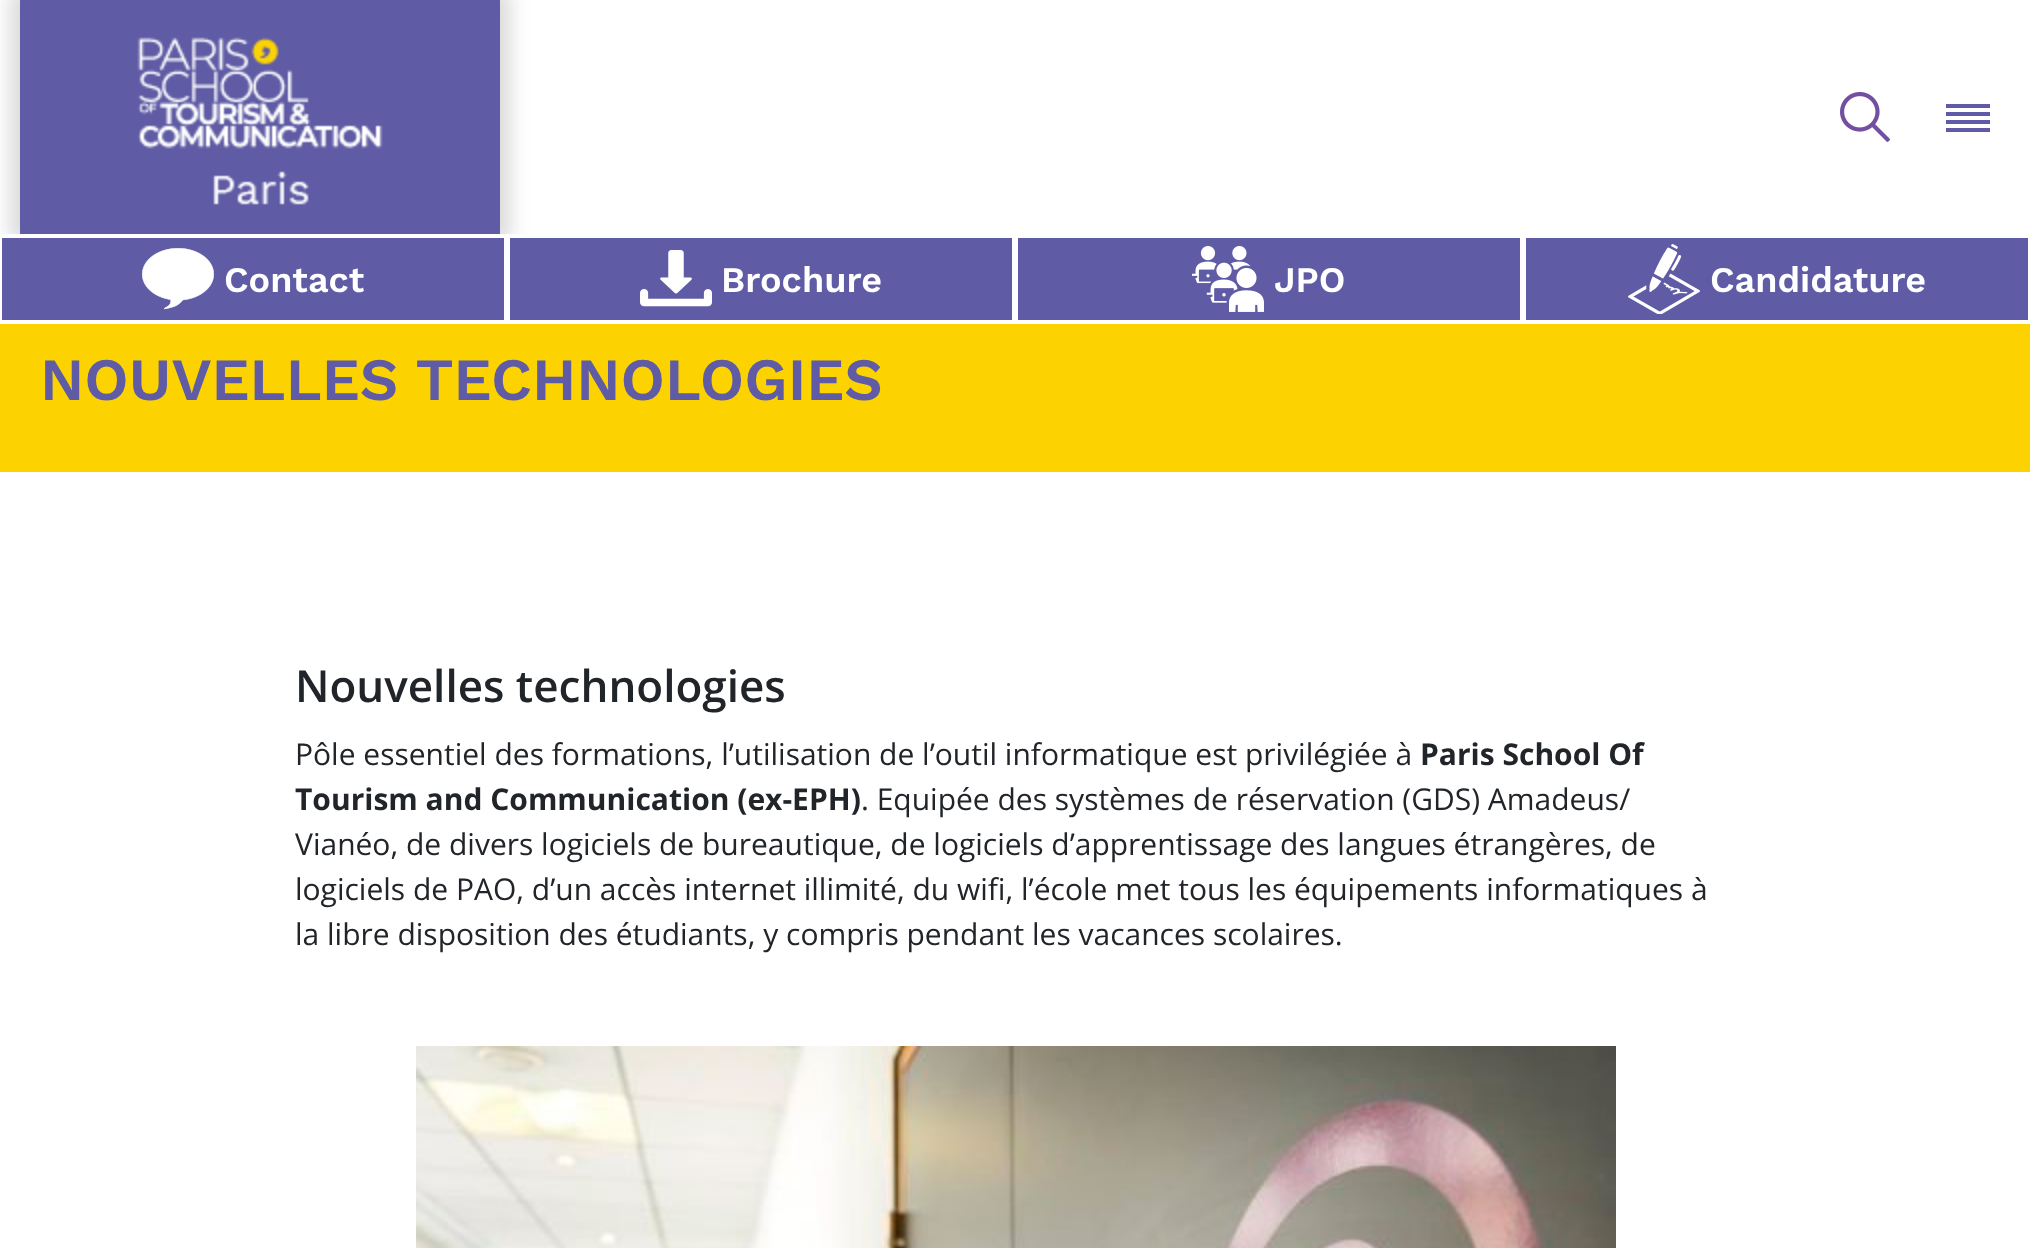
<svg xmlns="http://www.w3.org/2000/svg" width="2030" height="1248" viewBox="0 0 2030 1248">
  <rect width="100%" height="100%" fill="rgb(255,255,255)"/>
  <rect x="10" y="-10" width="500" height="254" fill="rgba(0,0,0,0.15)" filter="blur(10px)"/>
  <image x="20" y="0" width="480" height="234" href="pic1.png"/>
  <image x="1840" y="92" width="50" height="50" href="pic2.png"/>
  <rect x="1946" y="104" width="44" height="4" fill="rgb(95,91,165)"/>
  <rect x="1946" y="112" width="44" height="4" fill="rgb(95,91,165)"/>
  <rect x="1946" y="120" width="44" height="4" fill="rgb(95,91,165)"/>
  <rect x="1946" y="128" width="44" height="4" fill="rgb(95,91,165)"/>
  <rect x="0" y="234" width="524" height="2" fill="rgb(255,255,255)"/>
  <rect x="506" y="236" width="2" height="21" fill="rgb(255,255,255)"/>
  <rect x="1" y="237" width="504" height="84" fill="rgb(95,91,165)" stroke="rgb(255,255,255)" stroke-width="2"/>
  <image x="142" y="248" width="72" height="62" href="pic3.png"/>
  <text x="224" y="292" font-family="Work Sans" font-size="36" font-weight="600" fill="rgb(255,255,255)">Contact</text>
  <rect x="509" y="237" width="504" height="84" fill="rgb(95,91,165)" stroke="rgb(255,255,255)" stroke-width="2"/>
  <image x="640" y="250" width="72" height="57" href="pic4.png"/>
  <text x="721" y="292" font-family="Work Sans" font-size="36" font-weight="600" fill="rgb(255,255,255)">Brochure</text>
  <rect x="1018" y="238" width="502" height="82" fill="rgb(95,91,165)"/>
  <image x="1192" y="246" width="72" height="66" href="pic5.png"/>
  <text x="1274" y="292" font-family="Work Sans" font-size="36" font-weight="600" fill="rgb(255,255,255)">JPO</text>
  <rect x="1526" y="238" width="502" height="82" fill="rgb(95,91,165)"/>
  <image x="1628" y="244" width="72" height="70" href="pic6.png"/>
  <text x="1710" y="292" font-family="Work Sans" font-size="36" font-weight="600" fill="rgb(255,255,255)">Candidature</text>
  <rect x="0" y="324" width="2030" height="148" fill="rgb(252,211,0)"/>
  <text x="40" y="400" font-family="Work Sans" font-size="60" font-weight="600" fill="rgb(95,91,165)">NOUVELLES TECHNOLOGIES</text>
  <text x="295" y="702" font-family="Open Sans" font-size="44" font-weight="600" fill="rgb(33,37,41)">Nouvelles technologies</text>
  <text x="295" y="765" font-family="Open Sans" font-size="30" fill="rgb(33,37,41)">Pôle essentiel des formations, l’utilisation de l’outil informatique est privilégiée à</text>
  <g font-family="Open Sans" font-size="30" font-weight="bold" fill="rgb(33,37,41)">
    <text x="1420" y="765">Paris School Of</text>
    <text x="295" y="810">Tourism and Communication (ex-EPH)</text>
  </g>
  <g font-family="Open Sans" font-size="30" fill="rgb(33,37,41)">
    <text x="861" y="810">. Equipée des systèmes de réservation (GDS) Amadeus/</text>
    <text>
      <tspan x="295" y="855">Vianéo, de divers logiciels de bureautique, de logiciels d’apprentissage des langues étrangères, de</tspan>
      <tspan x="295" y="900">logiciels de PAO, d’un accès internet illimité, du wifi, l’école met tous les équipements informatiques à</tspan>
      <tspan x="295" y="945">la libre disposition des étudiants, y compris pendant les vacances scolaires.</tspan>
    </text>
  </g>
  <image x="416" y="1046" width="1200" height="202" href="pic7.png"/>
</svg>
